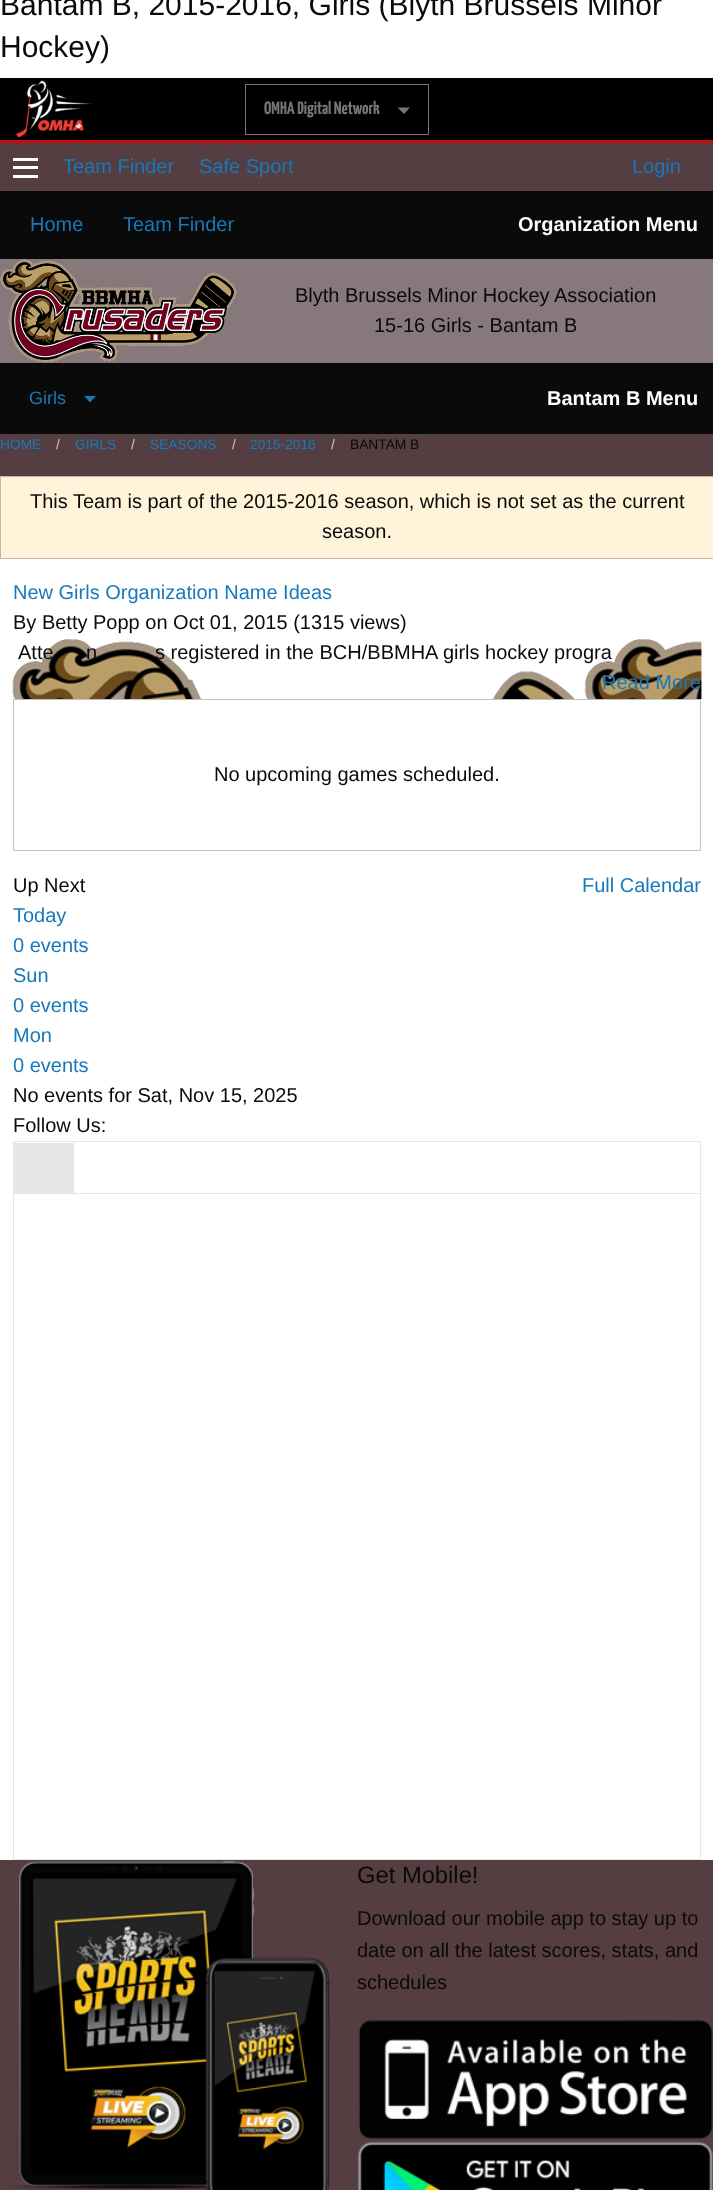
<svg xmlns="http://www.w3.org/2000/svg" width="713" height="2190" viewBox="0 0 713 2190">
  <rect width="100%" height="100%" fill="rgb(255,255,255)"/>
  <g font-family="Liberation Sans" font-size="30" fill="rgb(10,10,10)">
    <text>
      <tspan x="0" y="15">Bantam B, 2015-2016, Girls (Blyth Brussels Minor</tspan>
      <tspan x="0" y="57">Hockey)</tspan>
    </text>
  </g>
  <rect x="0" y="78" width="713" height="62" fill="rgb(0,0,0)"/>
  <rect x="0" y="140" width="713" height="3" fill="rgb(198,12,12)"/>
  <image x="15" y="80" width="78" height="58" href="pic1.png"/>
  <rect x="245.5" y="84.5" width="183" height="50" fill="none" stroke="rgb(118,118,118)"/>
  <text x="264" y="114" font-family="Yanone Kaffeesatz" font-size="18" font-weight="200" fill="rgb(118,118,118)">OMHA Digital Network</text>
  <path d="M397.5 107.5H410L404 114Z" fill="rgb(118,118,118)"/>
  <rect x="0" y="143" width="713" height="2047" fill="rgb(84,62,66)"/>
  <rect x="13" y="175" width="25" height="3" fill="rgb(254,254,254)"/>
  <rect x="13" y="166" width="25" height="3" fill="rgb(254,254,254)"/>
  <rect x="13" y="158" width="25" height="3" fill="rgb(254,254,254)"/>
  <g font-family="Liberation Sans" font-size="20" fill="rgb(23,121,186)">
    <text x="63" y="173">Team Finder</text>
    <text x="199" y="173">Safe Sport</text>
    <text x="632" y="173">Login</text>
  </g>
  <rect x="0" y="191" width="713" height="68" fill="rgb(10,10,10)"/>
  <g font-family="Liberation Sans" font-size="20" fill="rgb(23,121,186)">
    <text x="30" y="231">Home</text>
    <text x="123" y="231">Team Finder</text>
  </g>
  <text x="518" y="231" font-family="Liberation Sans" font-size="20" font-weight="bold" fill="rgb(254,254,254)">Organization Menu</text>
  <rect x="0" y="259" width="713" height="104" fill="rgb(135,120,123)"/>
  <image x="0" y="259" width="237" height="104" href="pic2.png"/>
  <g font-family="Liberation Sans" font-size="20" fill="rgb(10,10,10)">
    <text x="295" y="302">Blyth Brussels Minor Hockey Association</text>
    <text x="374" y="332">15-16 Girls - Bantam B</text>
  </g>
  <rect x="0" y="363" width="713" height="71" fill="rgb(10,10,10)"/>
  <text x="29" y="404" font-family="Liberation Sans" font-size="18" fill="rgb(23,121,186)">Girls</text>
  <path d="M84 396H96L90 402.5Z" fill="rgb(23,121,186)"/>
  <text x="547" y="405" font-family="Liberation Sans" font-size="20" font-weight="bold" fill="rgb(254,254,254)">Bantam B Menu</text>
  <text x="0" y="449" font-family="Liberation Sans" font-size="13.75" fill="rgb(23,121,186)">HOME</text>
  <text x="56" y="449" font-family="Liberation Sans" font-size="13.75" fill="rgb(202,202,202)">/</text>
  <text x="75" y="449" font-family="Liberation Sans" font-size="13.75" fill="rgb(23,121,186)">GIRLS</text>
  <text x="131" y="449" font-family="Liberation Sans" font-size="13.75" fill="rgb(202,202,202)">/</text>
  <text x="150" y="449" font-family="Liberation Sans" font-size="13.75" fill="rgb(23,121,186)">SEASONS</text>
  <text x="232" y="449" font-family="Liberation Sans" font-size="13.75" fill="rgb(202,202,202)">/</text>
  <text x="250" y="449" font-family="Liberation Sans" font-size="13.75" fill="rgb(23,121,186)">2015-2016</text>
  <text x="331" y="449" font-family="Liberation Sans" font-size="13.75" fill="rgb(202,202,202)">/</text>
  <text x="350" y="449" font-family="Liberation Sans" font-size="13.75" fill="rgb(10,10,10)">BANTAM B</text>
  <rect x="0" y="559" width="713" height="1301" fill="rgb(255,255,255)"/>
  <rect x="0.5" y="476.5" width="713" height="82" fill="rgb(255,243,217)" stroke="rgb(194,185,165)"/>
  <g font-family="Liberation Sans" font-size="20" fill="rgb(10,10,10)">
    <text x="30" y="508">This Team is part of the 2015-2016 season, which is not set as the current</text>
    <text x="322" y="538">season.</text>
  </g>
  <text x="13" y="599" font-family="Liberation Sans" font-size="20" fill="rgb(23,121,186)">New Girls Organization Name Ideas</text>
  <text x="13" y="629" font-family="Liberation Sans" font-size="20" fill="rgb(10,10,10)">By Betty Popp on Oct 01, 2015 (1315 views)</text>
  <image x="12" y="639" width="690" height="60" href="pic3.png"/>
  <image x="12" y="639" width="690" height="60" href="pic4.png"/>
  <g font-family="Liberation Sans" font-size="20" fill="rgb(10,10,10)">
    <text x="18" y="659">Atte</text>
    <text x="86" y="659">n</text>
    <text x="155" y="659">s registered in the BCH/BBMHA girls hockey progra</text>
  </g>
  <text x="602" y="689" font-family="Liberation Sans" font-size="20" fill="rgb(23,121,186)">Read More</text>
  <rect x="13.5" y="699.5" width="687" height="151" fill="none" stroke="rgb(194,194,194)"/>
  <g font-family="Liberation Sans" font-size="20" fill="rgb(10,10,10)">
    <text x="214" y="781">No upcoming games scheduled.</text>
    <text x="13" y="892">Up Next</text>
  </g>
  <g font-family="Liberation Sans" font-size="20" fill="rgb(23,121,186)">
    <text x="582" y="892">Full Calendar</text>
    <text>
      <tspan x="13" y="922">Today</tspan>
      <tspan x="13" y="952">0 events</tspan>
      <tspan x="13" y="982">Sun</tspan>
      <tspan x="13" y="1012">0 events</tspan>
      <tspan x="13" y="1042">Mon</tspan>
      <tspan x="13" y="1072">0 events</tspan>
    </text>
  </g>
  <g font-family="Liberation Sans" font-size="20" fill="rgb(10,10,10)">
    <text>
      <tspan x="13" y="1102">No events for Sat, Nov 15, 2025</tspan>
      <tspan x="13" y="1132">Follow Us:</tspan>
    </text>
  </g>
  <rect x="13.5" y="1141.5" width="687" height="52" fill="none" stroke="rgb(230,230,230)"/>
  <rect x="14" y="1143" width="60" height="50" fill="rgb(230,230,230)"/>
  <rect x="700" y="1194" width="1" height="666" fill="rgb(230,230,230)"/>
  <rect x="13" y="1859" width="688" height="1" fill="rgb(230,230,230)"/>
  <rect x="13" y="1194" width="1" height="666" fill="rgb(230,230,230)"/>
  <image x="11" y="1860" width="319" height="330" href="pic5.png"/>
  <text x="357" y="1883" font-family="Liberation Sans" font-size="23.75" fill="rgb(10,10,10)">Get Mobile!</text>
  <g font-family="Liberation Sans" font-size="20" fill="rgb(10,10,10)">
    <text>
      <tspan x="357" y="1925">Download our mobile app to stay up to</tspan>
      <tspan x="357" y="1957">date on all the latest scores, stats, and</tspan>
      <tspan x="357" y="1989">schedules</tspan>
    </text>
  </g>
  <image x="358" y="2020" width="355" height="120" href="pic6.png"/>
  <image x="357" y="2141" width="356" height="49" href="pic7.png"/>
</svg>
